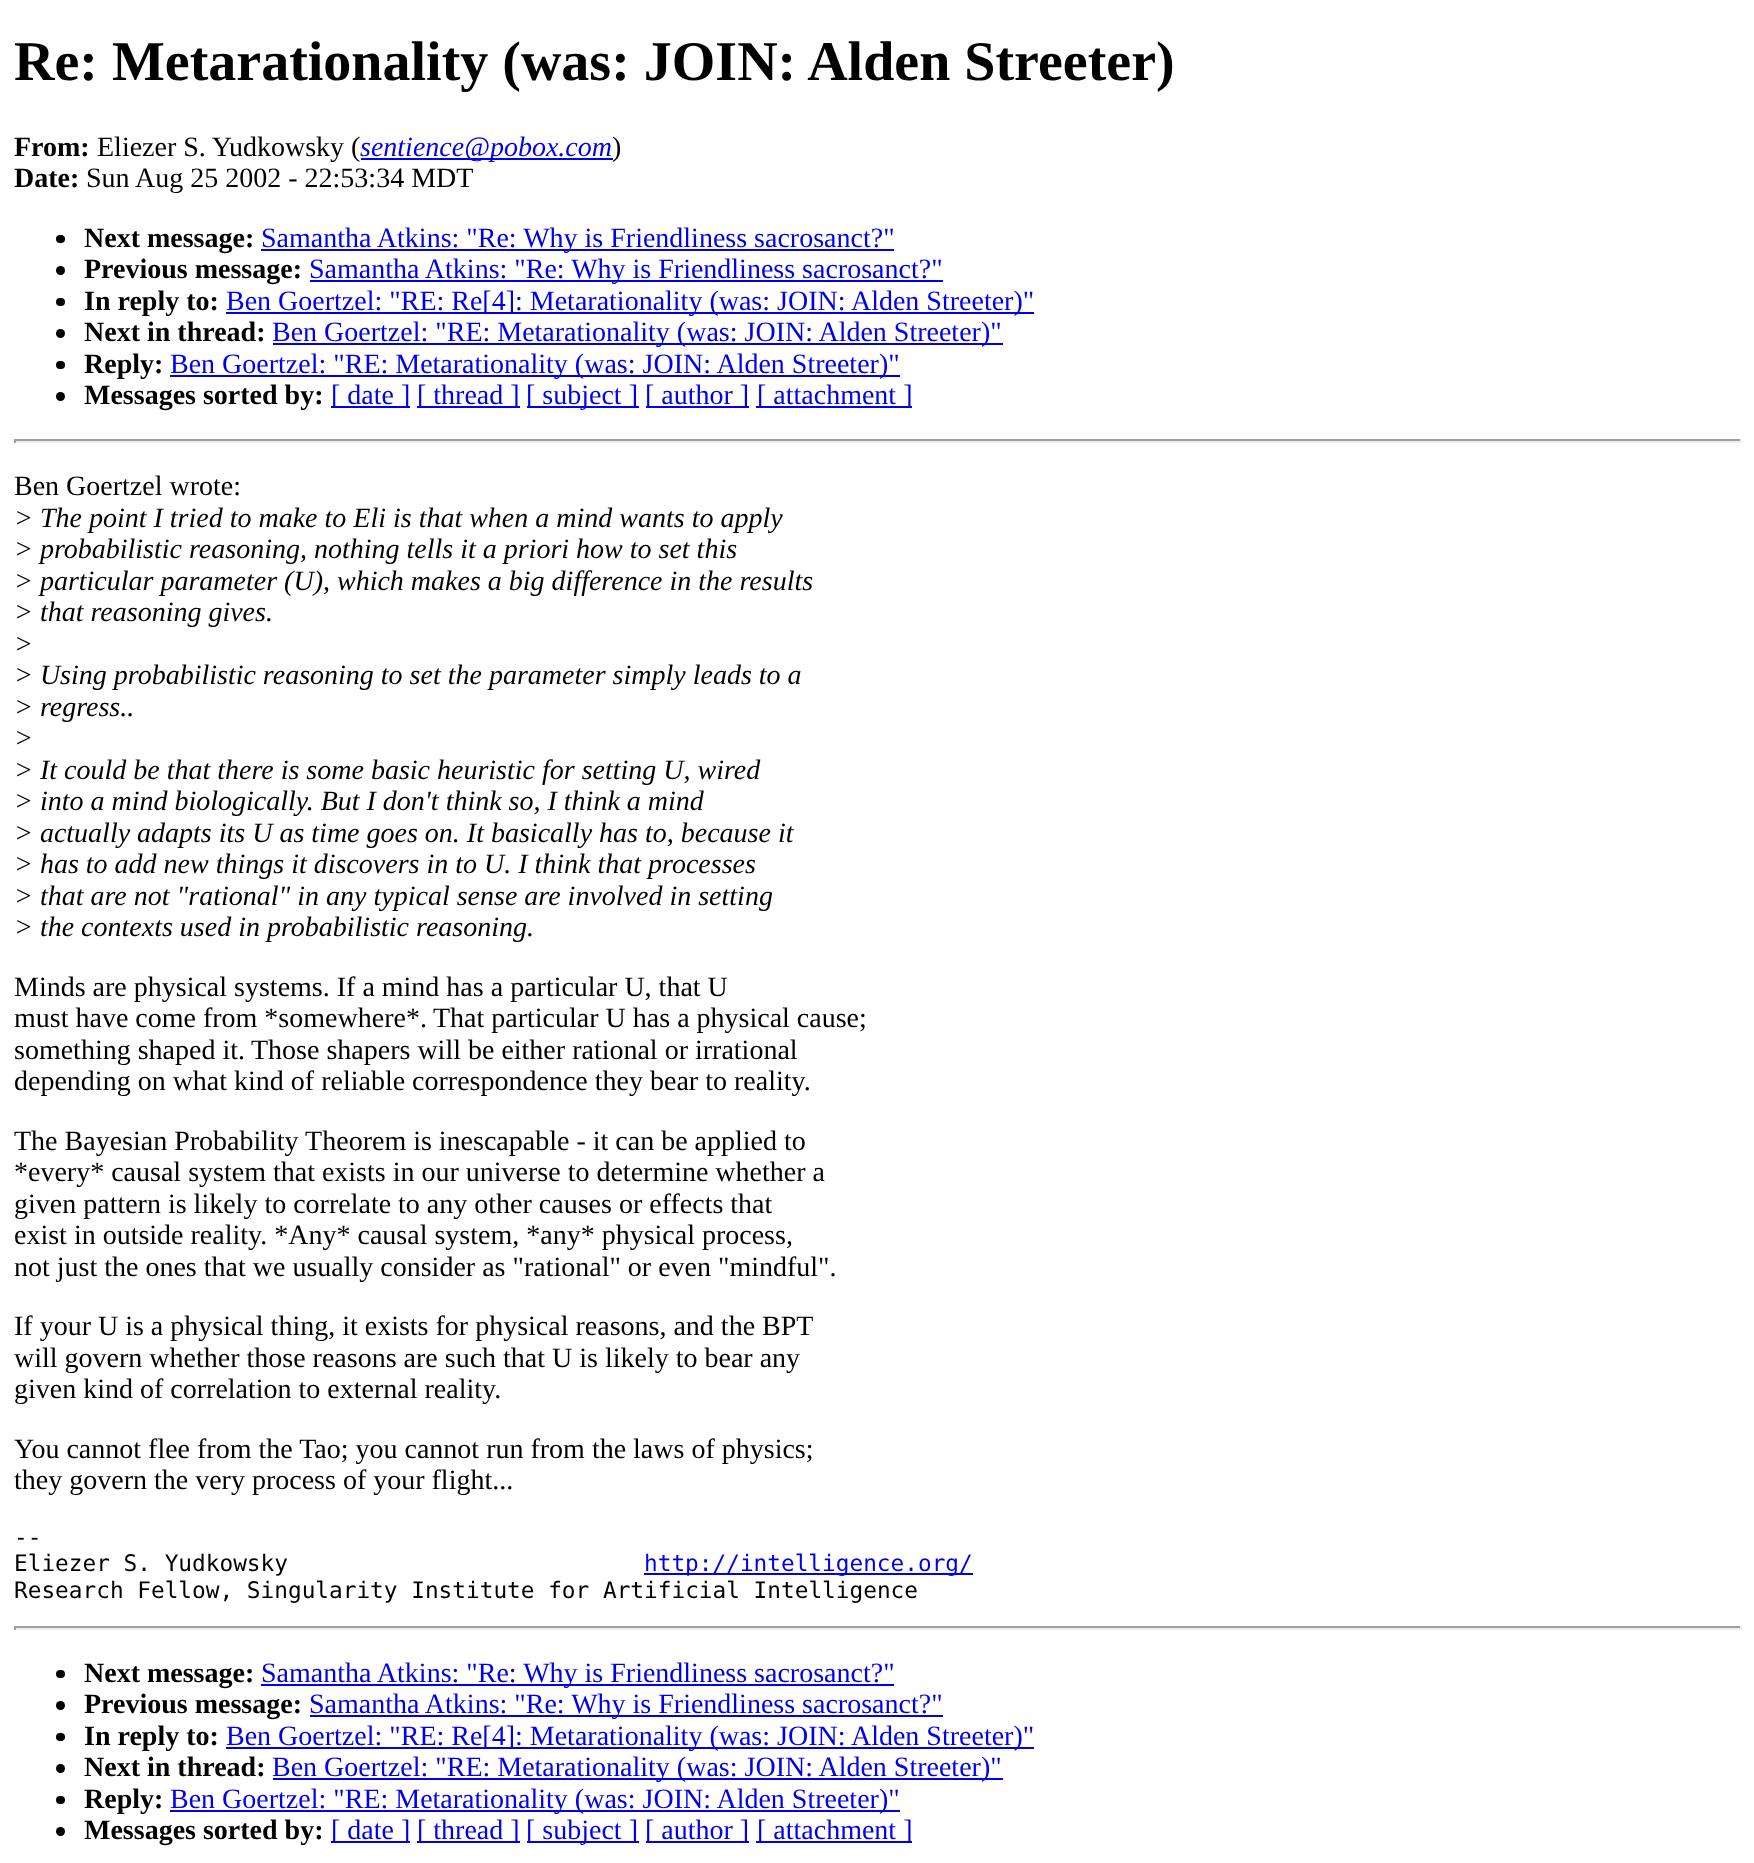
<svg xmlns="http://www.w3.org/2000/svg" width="1754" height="1863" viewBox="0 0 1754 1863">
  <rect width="100%" height="100%" fill="rgb(255,255,255)"/>
  <text x="14" y="80" font-family="Liberation Serif" font-size="56" font-weight="bold" fill="rgb(0,0,0)">Re: Metarationality (was: JOIN: Alden Streeter)</text>
  <text x="14" y="156" font-family="Liberation Serif" font-size="28" font-weight="bold" fill="rgb(0,0,0)">From:</text>
  <text x="97" y="156" font-family="Liberation Serif" font-size="28" fill="rgb(0,0,0)">Eliezer S. Yudkowsky (</text>
  <rect x="361" y="158" width="252" height="2" fill="rgb(0,0,238)"/>
  <text x="360" y="156" font-family="Liberation Serif" font-size="28" font-style="italic" fill="rgb(0,0,238)">sentience@pobox.com</text>
  <text x="612" y="156" font-family="Liberation Serif" font-size="28" fill="rgb(0,0,0)">)</text>
  <text x="14" y="187" font-family="Liberation Serif" font-size="28" font-weight="bold" fill="rgb(0,0,0)">Date:</text>
  <text x="86" y="187" font-family="Liberation Serif" font-size="28" fill="rgb(0,0,0)">Sun Aug 25 2002 - 22:53:34 MDT</text>
  <rect x="56" y="235" width="9" height="8" rx="4" fill="rgb(0,0,0)"/>
  <text x="84" y="247" font-family="Liberation Serif" font-size="28" font-weight="bold" fill="rgb(0,0,0)">Next message:</text>
  <rect x="261" y="249" width="633" height="2" fill="rgb(0,0,238)"/>
  <text x="261" y="247" font-family="Liberation Serif" font-size="28" fill="rgb(0,0,238)">Samantha Atkins: "Re: Why is Friendliness sacrosanct?"</text>
  <circle cx="60.5" cy="270.5" r="4.5" fill="rgb(0,0,0)"/>
  <text x="84" y="278" font-family="Liberation Serif" font-size="28" font-weight="bold" fill="rgb(0,0,0)">Previous message:</text>
  <rect x="310" y="280" width="633" height="2" fill="rgb(0,0,238)"/>
  <text x="309" y="278" font-family="Liberation Serif" font-size="28" fill="rgb(0,0,238)">Samantha Atkins: "Re: Why is Friendliness sacrosanct?"</text>
  <rect x="56" y="298" width="9" height="8" rx="4" fill="rgb(0,0,0)"/>
  <text x="84" y="310" font-family="Liberation Serif" font-size="28" font-weight="bold" fill="rgb(0,0,0)">In reply to:</text>
  <rect x="226" y="312" width="808" height="2" fill="rgb(0,0,238)"/>
  <text x="226" y="310" font-family="Liberation Serif" font-size="28" fill="rgb(0,0,238)">Ben Goertzel: "RE: Re[4]: Metarationality (was: JOIN: Alden Streeter)"</text>
  <circle cx="60.5" cy="333.5" r="4.5" fill="rgb(0,0,0)"/>
  <text x="84" y="341" font-family="Liberation Serif" font-size="28" font-weight="bold" fill="rgb(0,0,0)">Next in thread:</text>
  <rect x="273" y="343" width="730" height="2" fill="rgb(0,0,238)"/>
  <text x="272" y="341" font-family="Liberation Serif" font-size="28" fill="rgb(0,0,238)">Ben Goertzel: "RE: Metarationality (was: JOIN: Alden Streeter)"</text>
  <rect x="56" y="361" width="9" height="8" rx="4" fill="rgb(0,0,0)"/>
  <text x="84" y="373" font-family="Liberation Serif" font-size="28" font-weight="bold" fill="rgb(0,0,0)">Reply:</text>
  <rect x="170" y="375" width="730" height="2" fill="rgb(0,0,238)"/>
  <text x="170" y="373" font-family="Liberation Serif" font-size="28" fill="rgb(0,0,238)">Ben Goertzel: "RE: Metarationality (was: JOIN: Alden Streeter)"</text>
  <circle cx="60.5" cy="396.5" r="4.5" fill="rgb(0,0,0)"/>
  <text x="84" y="404" font-family="Liberation Serif" font-size="28" font-weight="bold" fill="rgb(0,0,0)">Messages sorted by:</text>
  <rect x="331" y="406" width="79" height="2" fill="rgb(0,0,238)"/>
  <text x="331" y="404" font-family="Liberation Serif" font-size="28" fill="rgb(0,0,238)">[ date ]</text>
  <rect x="417" y="406" width="103" height="2" fill="rgb(0,0,238)"/>
  <text x="417" y="404" font-family="Liberation Serif" font-size="28" fill="rgb(0,0,238)">[ thread ]</text>
  <rect x="527" y="406" width="112" height="2" fill="rgb(0,0,238)"/>
  <text x="526" y="404" font-family="Liberation Serif" font-size="28" fill="rgb(0,0,238)">[ subject ]</text>
  <rect x="646" y="406" width="103" height="2" fill="rgb(0,0,238)"/>
  <text x="645" y="404" font-family="Liberation Serif" font-size="28" fill="rgb(0,0,238)">[ author ]</text>
  <rect x="756" y="406" width="156" height="2" fill="rgb(0,0,238)"/>
  <text x="757" y="404" font-family="Liberation Serif" font-size="28" fill="rgb(0,0,238)">[ attachment ]</text>
  <rect x="14" y="439" width="1727" height="2" fill="rgb(159,159,159)"/>
  <rect x="1740" y="439" width="2" height="4" fill="rgb(238,238,238)"/>
  <rect x="14" y="441" width="1727" height="2" fill="rgb(238,238,238)"/>
  <rect x="14" y="439" width="2" height="4" fill="rgb(159,159,159)"/>
  <text x="14" y="495" font-family="Liberation Serif" font-size="28" fill="rgb(0,0,0)">Ben Goertzel wrote:</text>
  <g font-family="Liberation Serif" font-size="28" font-style="italic" fill="rgb(0,0,0)">
    <text>
      <tspan x="14" y="527">&gt; The point I tried to make to Eli is that when a mind wants to apply</tspan>
      <tspan x="14" y="558">&gt; probabilistic reasoning, nothing tells it a priori how to set this</tspan>
      <tspan x="14" y="590">&gt; particular parameter (U), which makes a big difference in the results</tspan>
      <tspan x="14" y="621">&gt; that reasoning gives.</tspan>
      <tspan x="14" y="653">&gt;</tspan>
      <tspan x="14" y="684">&gt; Using probabilistic reasoning to set the parameter simply leads to a</tspan>
      <tspan x="14" y="716">&gt; regress..</tspan>
      <tspan x="14" y="747">&gt;</tspan>
      <tspan x="14" y="779">&gt; It could be that there is some basic heuristic for setting U, wired</tspan>
      <tspan x="14" y="810">&gt; into a mind biologically. But I don't think so, I think a mind</tspan>
      <tspan x="14" y="842">&gt; actually adapts its U as time goes on. It basically has to, because it</tspan>
      <tspan x="14" y="873">&gt; has to add new things it discovers in to U. I think that processes</tspan>
      <tspan x="14" y="905">&gt; that are not "rational" in any typical sense are involved in setting</tspan>
      <tspan x="14" y="936">&gt; the contexts used in probabilistic reasoning.</tspan>
    </text>
  </g>
  <g font-family="Liberation Serif" font-size="28" fill="rgb(0,0,0)">
    <text>
      <tspan x="14" y="996">Minds are physical systems. If a mind has a particular U, that U</tspan>
      <tspan x="14" y="1027">must have come from *somewhere*.</tspan>
    </text>
    <text x="433" y="1027">That particular U has a physical cause;</text>
    <text x="14" y="1059">something shaped it.</text>
    <text x="251" y="1059">Those shapers will be either rational or irrational</text>
    <text x="14" y="1090">depending on what kind of reliable correspondence they bear to reality.</text>
    <text>
      <tspan x="14" y="1150">The Bayesian Probability Theorem is inescapable - it can be applied to</tspan>
      <tspan x="14" y="1181">*every* causal system that exists in our universe to determine whether a</tspan>
      <tspan x="14" y="1213">given pattern is likely to correlate to any other causes or effects that</tspan>
      <tspan x="14" y="1244">exist in outside reality. *Any* causal system, *any* physical process,</tspan>
      <tspan x="14" y="1276">not just the ones that we usually consider as "rational" or even "mindful".</tspan>
    </text>
    <text>
      <tspan x="14" y="1335">If your U is a physical thing, it exists for physical reasons, and the BPT</tspan>
      <tspan x="14" y="1367">will govern whether those reasons are such that U is likely to bear any</tspan>
      <tspan x="14" y="1398">given kind of correlation to external reality.</tspan>
    </text>
    <text>
      <tspan x="14" y="1458">You cannot flee from the Tao; you cannot run from the laws of physics;</tspan>
      <tspan x="14" y="1489">they govern the very process of your flight...</tspan>
    </text>
  </g>
  <g font-family="DejaVu Sans Mono" font-size="22.75" fill="rgb(0,0,0)">
    <text>
      <tspan x="14" y="1545">--</tspan>
      <tspan x="14" y="1571">Eliezer S. Yudkowsky</tspan>
    </text>
  </g>
  <rect x="644" y="1573" width="329" height="2" fill="rgb(0,0,238)"/>
  <text x="644" y="1571" font-family="DejaVu Sans Mono" font-size="22.75" fill="rgb(0,0,238)">http://intelligence.org/</text>
  <text x="14" y="1598" font-family="DejaVu Sans Mono" font-size="22.75" fill="rgb(0,0,0)">Research Fellow, Singularity Institute for Artificial Intelligence</text>
  <rect x="14" y="1626" width="1727" height="2" fill="rgb(159,159,159)"/>
  <rect x="1740" y="1626" width="2" height="4" fill="rgb(238,238,238)"/>
  <rect x="14" y="1628" width="1727" height="2" fill="rgb(238,238,238)"/>
  <rect x="14" y="1626" width="2" height="4" fill="rgb(159,159,159)"/>
  <rect x="56" y="1670" width="9" height="8" rx="4" fill="rgb(0,0,0)"/>
  <text x="84" y="1682" font-family="Liberation Serif" font-size="28" font-weight="bold" fill="rgb(0,0,0)">Next message:</text>
  <rect x="261" y="1684" width="633" height="2" fill="rgb(0,0,238)"/>
  <text x="261" y="1682" font-family="Liberation Serif" font-size="28" fill="rgb(0,0,238)">Samantha Atkins: "Re: Why is Friendliness sacrosanct?"</text>
  <circle cx="60.5" cy="1705.5" r="4.5" fill="rgb(0,0,0)"/>
  <text x="84" y="1713" font-family="Liberation Serif" font-size="28" font-weight="bold" fill="rgb(0,0,0)">Previous message:</text>
  <rect x="310" y="1715" width="633" height="2" fill="rgb(0,0,238)"/>
  <text x="309" y="1713" font-family="Liberation Serif" font-size="28" fill="rgb(0,0,238)">Samantha Atkins: "Re: Why is Friendliness sacrosanct?"</text>
  <rect x="56" y="1733" width="9" height="8" rx="4" fill="rgb(0,0,0)"/>
  <text x="84" y="1745" font-family="Liberation Serif" font-size="28" font-weight="bold" fill="rgb(0,0,0)">In reply to:</text>
  <rect x="226" y="1747" width="808" height="2" fill="rgb(0,0,238)"/>
  <text x="226" y="1745" font-family="Liberation Serif" font-size="28" fill="rgb(0,0,238)">Ben Goertzel: "RE: Re[4]: Metarationality (was: JOIN: Alden Streeter)"</text>
  <circle cx="60.5" cy="1768.5" r="4.5" fill="rgb(0,0,0)"/>
  <text x="84" y="1776" font-family="Liberation Serif" font-size="28" font-weight="bold" fill="rgb(0,0,0)">Next in thread:</text>
  <rect x="273" y="1778" width="730" height="2" fill="rgb(0,0,238)"/>
  <text x="272" y="1776" font-family="Liberation Serif" font-size="28" fill="rgb(0,0,238)">Ben Goertzel: "RE: Metarationality (was: JOIN: Alden Streeter)"</text>
  <rect x="56" y="1796" width="9" height="8" rx="4" fill="rgb(0,0,0)"/>
  <text x="84" y="1808" font-family="Liberation Serif" font-size="28" font-weight="bold" fill="rgb(0,0,0)">Reply:</text>
  <rect x="170" y="1810" width="730" height="2" fill="rgb(0,0,238)"/>
  <text x="170" y="1808" font-family="Liberation Serif" font-size="28" fill="rgb(0,0,238)">Ben Goertzel: "RE: Metarationality (was: JOIN: Alden Streeter)"</text>
  <circle cx="60.5" cy="1831.5" r="4.5" fill="rgb(0,0,0)"/>
  <text x="84" y="1839" font-family="Liberation Serif" font-size="28" font-weight="bold" fill="rgb(0,0,0)">Messages sorted by:</text>
  <rect x="331" y="1841" width="79" height="2" fill="rgb(0,0,238)"/>
  <text x="331" y="1839" font-family="Liberation Serif" font-size="28" fill="rgb(0,0,238)">[ date ]</text>
  <rect x="417" y="1841" width="103" height="2" fill="rgb(0,0,238)"/>
  <text x="417" y="1839" font-family="Liberation Serif" font-size="28" fill="rgb(0,0,238)">[ thread ]</text>
  <rect x="527" y="1841" width="112" height="2" fill="rgb(0,0,238)"/>
  <text x="526" y="1839" font-family="Liberation Serif" font-size="28" fill="rgb(0,0,238)">[ subject ]</text>
  <rect x="646" y="1841" width="103" height="2" fill="rgb(0,0,238)"/>
  <text x="645" y="1839" font-family="Liberation Serif" font-size="28" fill="rgb(0,0,238)">[ author ]</text>
  <rect x="756" y="1841" width="156" height="2" fill="rgb(0,0,238)"/>
  <text x="757" y="1839" font-family="Liberation Serif" font-size="28" fill="rgb(0,0,238)">[ attachment ]</text>
</svg>
